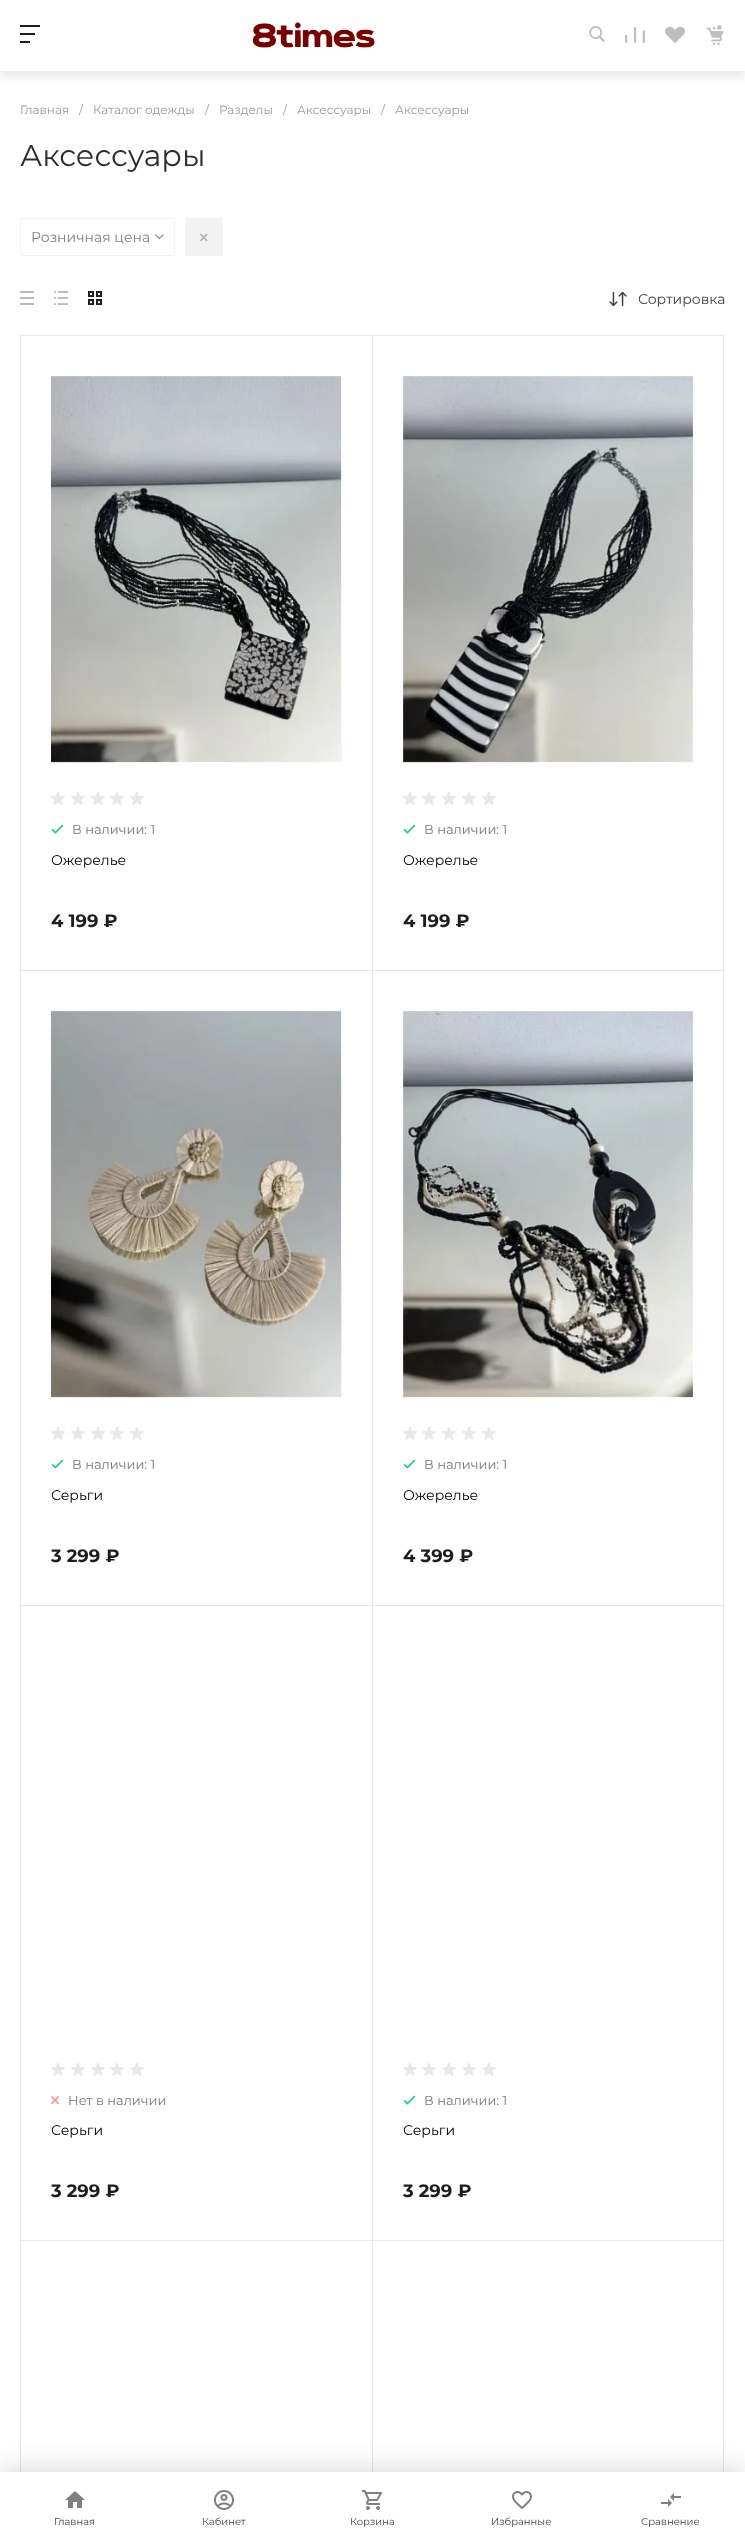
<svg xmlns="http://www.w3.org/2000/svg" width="745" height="2546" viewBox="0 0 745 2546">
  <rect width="100%" height="100%" fill="rgb(255,255,255)"/>
  <rect x="0" y="5" width="745" height="71" fill="rgba(0,0,0,0.1)" filter="blur(5px)"/>
  <rect x="0" y="0" width="745" height="71" fill="rgb(255,255,255)"/>
  <image x="20" y="25" width="20" height="18" href="pic1.png"/>
  <image x="252" y="22" width="123" height="26" href="pic2.png"/>
  <image x="589" y="26" width="16" height="16" href="pic3.png"/>
  <image x="625" y="27" width="20" height="16" href="pic4.png"/>
  <image x="665" y="26" width="20" height="18" href="pic5.png"/>
  <image x="706" y="25" width="18" height="20" href="pic6.png"/>
  <g font-family="Montserrat" font-size="12" fill="rgb(154,154,154)">
    <text x="20" y="114">Главная</text>
    <text x="79" y="114">/</text>
    <text x="93" y="114">Каталог одежды</text>
    <text x="205" y="114">/</text>
    <text x="219" y="114">Разделы</text>
    <text x="283" y="114">/</text>
    <text x="297" y="114">Аксессуары</text>
    <text x="381" y="114">/</text>
    <text x="395" y="114">Аксессуары</text>
  </g>
  <text x="20" y="166" font-family="Montserrat" font-size="30" fill="rgb(45,45,45)">Аксессуары</text>
  <rect x="20.5" y="335.5" width="352" height="635" fill="none" stroke="rgb(232,232,232)"/>
  <rect x="372.5" y="335.5" width="351" height="635" fill="none" stroke="rgb(232,232,232)"/>
  <rect x="20.5" y="970.5" width="352" height="635" fill="none" stroke="rgb(232,232,232)"/>
  <rect x="372.5" y="970.5" width="351" height="635" fill="none" stroke="rgb(232,232,232)"/>
  <rect x="20.5" y="1605.5" width="352" height="635" fill="none" stroke="rgb(232,232,232)"/>
  <rect x="372.5" y="1605.5" width="351" height="635" fill="none" stroke="rgb(232,232,232)"/>
  <rect x="20.5" y="2240.5" width="352" height="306" fill="none" stroke="rgb(232,232,232)"/>
  <rect x="372.5" y="2240.5" width="351" height="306" fill="none" stroke="rgb(232,232,232)"/>
  <rect x="0" y="2468" width="745" height="74" fill="rgba(27,30,37,0.08)" filter="blur(12px)"/>
  <rect x="0" y="2468" width="745" height="74" fill="rgba(27,30,37,0.08)" filter="blur(12px)"/>
  <rect x="0" y="2472" width="745" height="74" fill="rgb(255,255,255)"/>
  <image x="65" y="2491" width="20" height="17" href="pic7.png"/>
  <text x="54" y="2525" font-family="Montserrat" font-size="10" fill="rgb(64,64,64)">Главная</text>
  <image x="214" y="2490" width="20" height="20" href="pic8.png"/>
  <text x="202" y="2525" font-family="Montserrat" font-size="10" fill="rgb(64,64,64)">Кабинет</text>
  <image x="362" y="2490" width="20" height="20" href="pic9.png"/>
  <text x="350" y="2525" font-family="Montserrat" font-size="10" fill="rgb(64,64,64)">Корзина</text>
  <image x="512" y="2491" width="20" height="19" href="pic10.png"/>
  <text x="491" y="2525" font-family="Montserrat" font-size="10" fill="rgb(64,64,64)">Избранные</text>
  <image x="661" y="2493" width="20" height="14" href="pic11.png"/>
  <text x="641" y="2525" font-family="Montserrat" font-size="10" fill="rgb(64,64,64)">Сравнение</text>
  <rect x="20.5" y="218.5" width="154" height="37" rx="1.5" fill="none" stroke="rgb(242,242,242)"/>
  <text x="31" y="242" font-family="Montserrat" font-size="14" fill="rgb(128,128,128)">Розничная цена</text>
  <image x="155" y="234" width="9" height="6" href="pic12.png"/>
  <rect x="185" y="218" width="38" height="38" rx="2" fill="rgb(242,242,242)"/>
  <image x="200" y="233" width="8" height="9" href="pic13.png"/>
  <image x="20" y="291" width="14" height="14" href="pic14.png"/>
  <image x="54" y="291" width="14" height="14" href="pic15.png"/>
  <image x="88" y="291" width="14" height="14" href="pic16.png"/>
  <image x="609" y="291" width="18" height="16" href="pic17.png"/>
  <text x="638" y="304" font-family="Montserrat" font-size="14" fill="rgb(64,64,64)">Сортировка</text>
  <image x="51" y="376" width="291" height="387" href="pic18.png"/>
  <image x="341" y="455" width="1" height="307" href="pic19.png"/>
  <image x="51" y="792" width="14" height="13" href="pic20.png"/>
  <image x="71" y="792" width="14" height="13" href="pic20.png"/>
  <image x="91" y="792" width="14" height="13" href="pic20.png"/>
  <image x="110" y="792" width="14" height="13" href="pic20.png"/>
  <image x="130" y="792" width="14" height="13" href="pic20.png"/>
  <image x="51" y="824" width="13" height="10" href="pic21.png"/>
  <text x="72" y="834" font-family="Montserrat" font-size="13" fill="rgb(119,119,119)">В наличии: 1</text>
  <text x="51" y="865" font-family="Montserrat" font-size="14" fill="rgb(0,0,0)">Ожерелье</text>
  <text x="51" y="927" font-family="Montserrat" font-size="18" font-weight="bold" fill="rgb(29,29,29)">4 199 ₽</text>
  <image x="403" y="376" width="290" height="387" href="pic22.png"/>
  <image x="403" y="792" width="14" height="13" href="pic20.png"/>
  <image x="422" y="792" width="14" height="13" href="pic20.png"/>
  <image x="442" y="792" width="14" height="13" href="pic20.png"/>
  <image x="462" y="792" width="14" height="13" href="pic20.png"/>
  <image x="482" y="792" width="14" height="13" href="pic20.png"/>
  <image x="403" y="824" width="13" height="10" href="pic21.png"/>
  <text x="424" y="834" font-family="Montserrat" font-size="13" fill="rgb(119,119,119)">В наличии: 1</text>
  <text x="403" y="865" font-family="Montserrat" font-size="14" fill="rgb(0,0,0)">Ожерелье</text>
  <text x="403" y="927" font-family="Montserrat" font-size="18" font-weight="bold" fill="rgb(29,29,29)">4 199 ₽</text>
  <image x="51" y="1010" width="291" height="388" href="pic23.png"/>
  <image x="341" y="1012" width="1" height="385" href="pic24.png"/>
  <image x="51" y="1427" width="14" height="13" href="pic20.png"/>
  <image x="71" y="1427" width="14" height="13" href="pic20.png"/>
  <image x="91" y="1427" width="14" height="13" href="pic20.png"/>
  <image x="110" y="1427" width="14" height="13" href="pic20.png"/>
  <image x="130" y="1427" width="14" height="13" href="pic20.png"/>
  <image x="51" y="1459" width="13" height="10" href="pic21.png"/>
  <text x="72" y="1469" font-family="Montserrat" font-size="13" fill="rgb(119,119,119)">В наличии: 1</text>
  <text x="51" y="1500" font-family="Montserrat" font-size="14" fill="rgb(0,0,0)">Серьги</text>
  <text x="51" y="1562" font-family="Montserrat" font-size="18" font-weight="bold" fill="rgb(29,29,29)">3 299 ₽</text>
  <image x="403" y="1011" width="290" height="387" href="pic25.png"/>
  <image x="403" y="1427" width="14" height="13" href="pic20.png"/>
  <image x="422" y="1427" width="14" height="13" href="pic20.png"/>
  <image x="442" y="1427" width="14" height="13" href="pic20.png"/>
  <image x="462" y="1427" width="14" height="13" href="pic20.png"/>
  <image x="482" y="1427" width="14" height="13" href="pic20.png"/>
  <image x="403" y="1459" width="13" height="10" href="pic21.png"/>
  <text x="424" y="1469" font-family="Montserrat" font-size="13" fill="rgb(119,119,119)">В наличии: 1</text>
  <text x="403" y="1500" font-family="Montserrat" font-size="14" fill="rgb(0,0,0)">Ожерелье</text>
  <text x="403" y="1562" font-family="Montserrat" font-size="18" font-weight="bold" fill="rgb(29,29,29)">4 399 ₽</text>
  <image x="51" y="2063" width="14" height="13" href="pic20.png"/>
  <image x="71" y="2063" width="14" height="13" href="pic20.png"/>
  <image x="91" y="2063" width="14" height="13" href="pic20.png"/>
  <image x="110" y="2063" width="14" height="13" href="pic20.png"/>
  <image x="130" y="2063" width="14" height="13" href="pic20.png"/>
  <image x="51" y="2096" width="9" height="9" href="pic26.png"/>
  <text x="68" y="2105" font-family="Montserrat" font-size="13" fill="rgb(119,119,119)">Нет в наличии</text>
  <text x="51" y="2135" font-family="Montserrat" font-size="14" fill="rgb(0,0,0)">Серьги</text>
  <text x="51" y="2197" font-family="Montserrat" font-size="18" font-weight="bold" fill="rgb(29,29,29)">3 299 ₽</text>
  <image x="403" y="2063" width="14" height="13" href="pic20.png"/>
  <image x="422" y="2063" width="14" height="13" href="pic20.png"/>
  <image x="442" y="2063" width="14" height="13" href="pic20.png"/>
  <image x="462" y="2063" width="14" height="13" href="pic20.png"/>
  <image x="482" y="2063" width="14" height="13" href="pic20.png"/>
  <image x="403" y="2095" width="13" height="10" href="pic21.png"/>
  <text x="424" y="2105" font-family="Montserrat" font-size="13" fill="rgb(119,119,119)">В наличии: 1</text>
  <text x="403" y="2135" font-family="Montserrat" font-size="14" fill="rgb(0,0,0)">Серьги</text>
  <text x="403" y="2197" font-family="Montserrat" font-size="18" font-weight="bold" fill="rgb(29,29,29)">3 299 ₽</text>
</svg>
